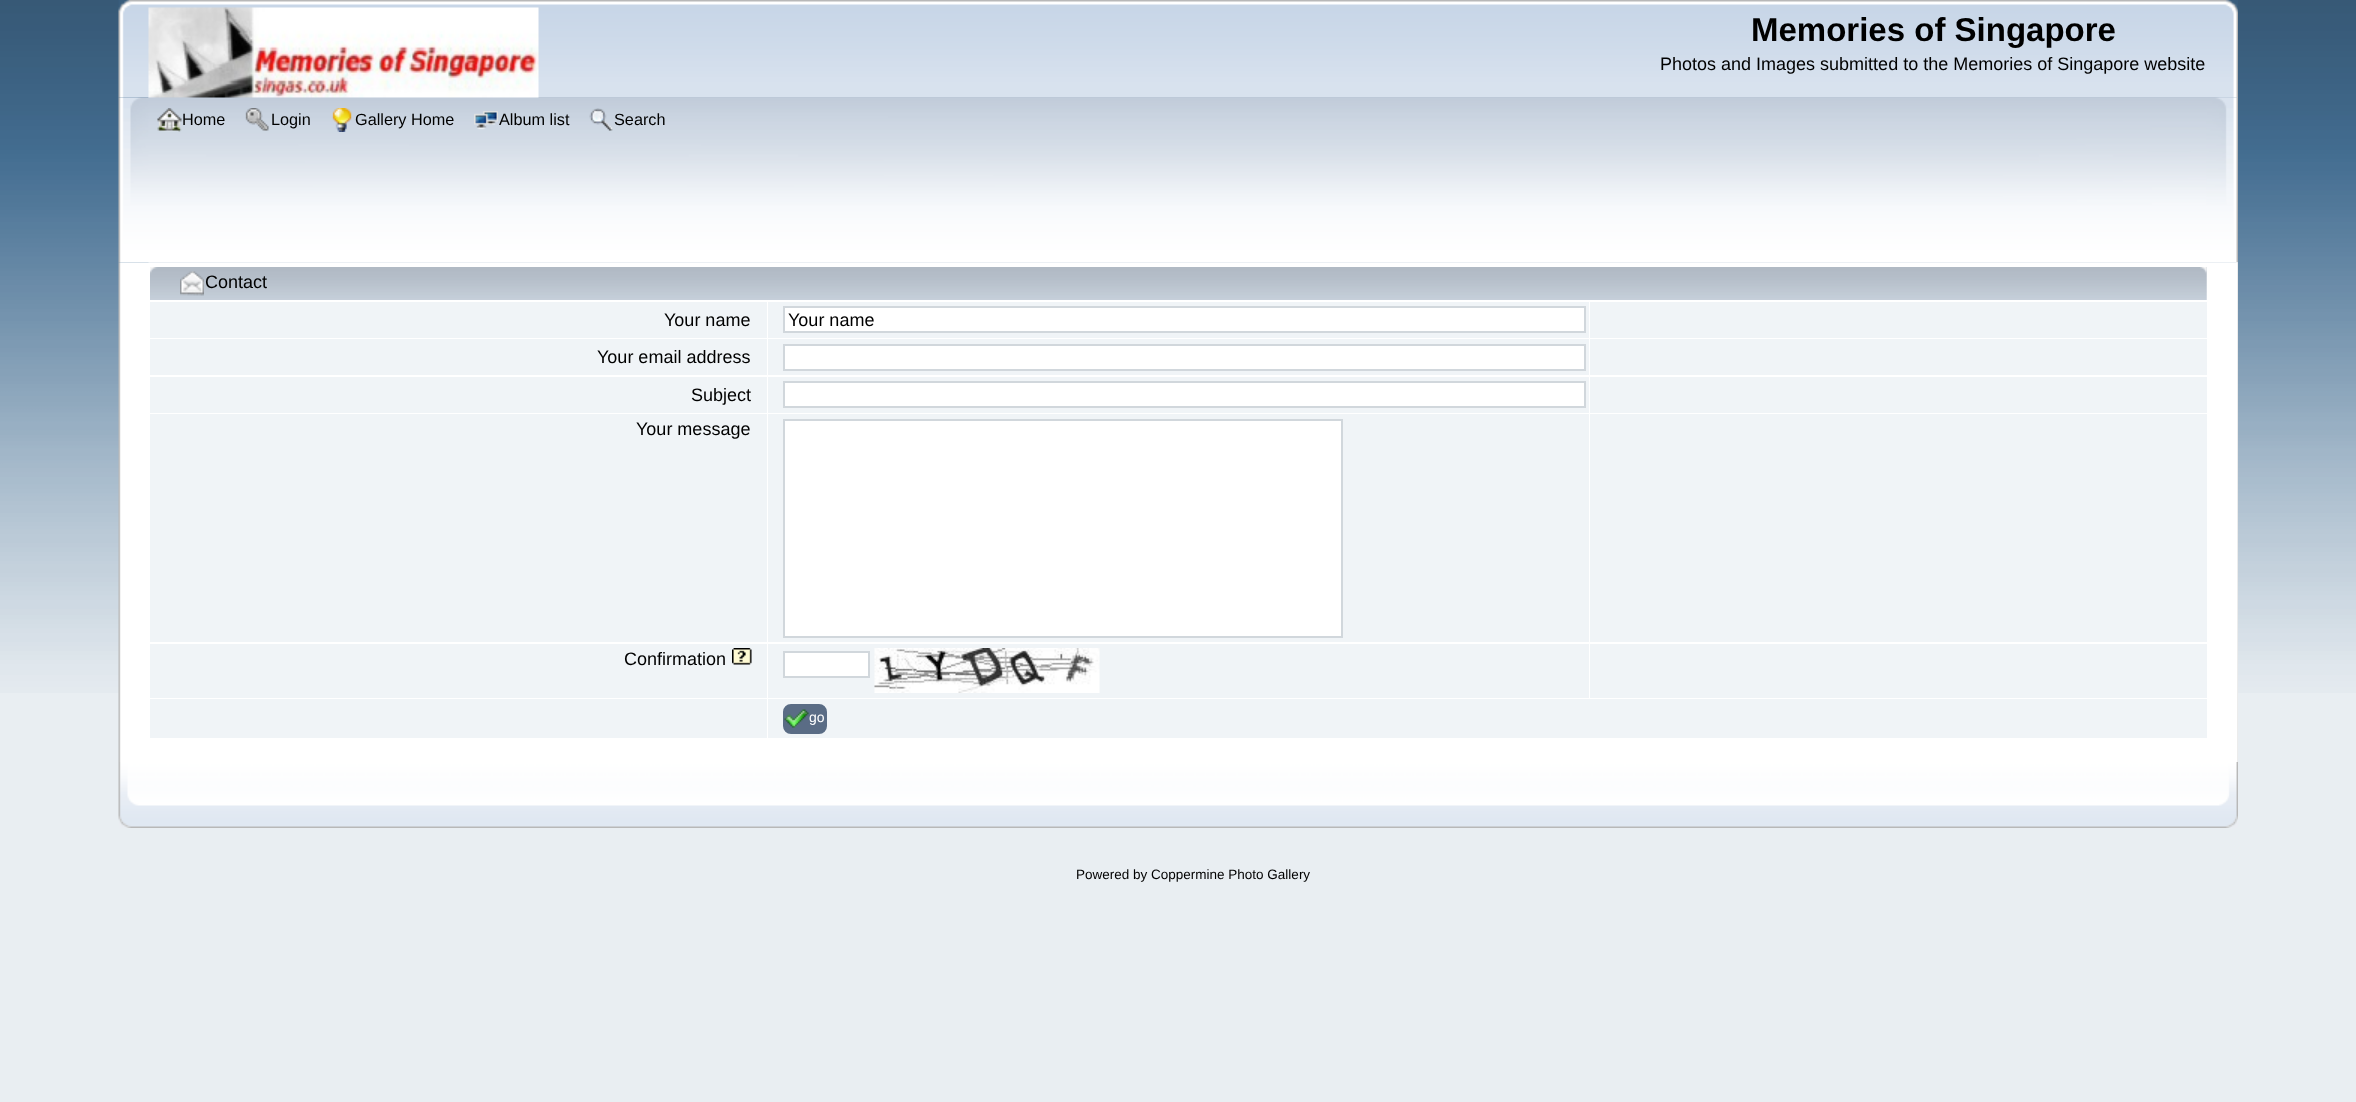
<svg xmlns="http://www.w3.org/2000/svg" width="2356" height="1102" viewBox="0 0 2356 1102">
  <rect width="100%" height="100%" fill="rgb(233,238,242)"/>
  <image x="0" y="0" width="2356" height="693" href="pic1.png"/>
  <image x="118" y="0" width="2120" height="98" href="pic2.png"/>
  <image x="148" y="0" width="2090" height="98" href="pic3.png"/>
  <image x="118" y="97" width="2120" height="166" href="pic5.png"/>
  <image x="148" y="97" width="2090" height="166" href="pic6.png"/>
  <image x="148" y="7" width="391" height="91" href="pic4.png"/>
  <text x="1751" y="41" font-family="Liberation Sans" font-size="33" font-weight="bold" fill="rgb(0,0,0)">Memories of Singapore</text>
  <text x="1660" y="70" font-family="Liberation Sans" font-size="18" fill="rgb(0,0,0)">Photos and Images submitted to the Memories of Singapore website</text>
  <image x="157" y="108" width="25" height="24" href="pic7.png"/>
  <text x="182" y="125" font-family="Liberation Sans" font-size="16.25" fill="rgb(0,0,0)">Home</text>
  <image x="245" y="108" width="24" height="23" href="pic8.png"/>
  <text x="271" y="125" font-family="Liberation Sans" font-size="16.25" fill="rgb(0,0,0)">Login</text>
  <image x="332" y="108" width="20" height="24" href="pic9.png"/>
  <text x="355" y="125" font-family="Liberation Sans" font-size="16.25" fill="rgb(0,0,0)">Gallery Home</text>
  <image x="474" y="111" width="24" height="19" href="pic10.png"/>
  <text x="499" y="125" font-family="Liberation Sans" font-size="16.25" fill="rgb(0,0,0)">Album list</text>
  <image x="589" y="108" width="24" height="23" href="pic11.png"/>
  <text x="614" y="125" font-family="Liberation Sans" font-size="16.25" fill="rgb(0,0,0)">Search</text>
  <image x="118" y="262" width="2120" height="500" href="pic12.png"/>
  <image x="2236" y="262" width="2" height="500" href="pic13.png"/>
  <image x="150" y="267" width="2057" height="33" href="pic14.png"/>
  <image x="2200" y="267" width="7" height="33" href="pic15.png"/>
  <image x="180" y="271" width="24" height="25" href="pic16.png"/>
  <text x="205" y="288" font-family="Liberation Sans" font-size="18" fill="rgb(0,0,0)">Contact</text>
  <rect x="150" y="302" width="617" height="36" fill="rgb(240,244,247)"/>
  <text x="664" y="326" font-family="Liberation Sans" font-size="18" fill="rgb(0,0,0)">Your name</text>
  <rect x="768" y="302" width="821" height="36" fill="rgb(240,244,247)"/>
  <rect x="784" y="307" width="801" height="25" fill="rgb(255,255,255)" stroke="rgb(209,215,220)" stroke-width="2"/>
  <text x="788" y="326" font-family="Liberation Sans" font-size="18" fill="rgb(0,0,0)">Your name</text>
  <rect x="1590" y="302" width="617" height="36" fill="rgb(240,244,247)"/>
  <rect x="150" y="339" width="617" height="36" fill="rgb(240,244,247)"/>
  <text x="597" y="363" font-family="Liberation Sans" font-size="18" fill="rgb(0,0,0)">Your email address</text>
  <rect x="768" y="339" width="821" height="36" fill="rgb(240,244,247)"/>
  <rect x="784" y="345" width="801" height="25" fill="rgb(255,255,255)" stroke="rgb(209,215,220)" stroke-width="2"/>
  <rect x="1590" y="339" width="617" height="36" fill="rgb(240,244,247)"/>
  <rect x="150" y="377" width="617" height="36" fill="rgb(240,244,247)"/>
  <text x="691" y="401" font-family="Liberation Sans" font-size="18" fill="rgb(0,0,0)">Subject</text>
  <rect x="768" y="377" width="821" height="36" fill="rgb(240,244,247)"/>
  <rect x="784" y="382" width="801" height="25" fill="rgb(255,255,255)" stroke="rgb(209,215,220)" stroke-width="2"/>
  <rect x="1590" y="377" width="617" height="36" fill="rgb(240,244,247)"/>
  <rect x="150" y="414" width="617" height="228" fill="rgb(240,244,247)"/>
  <text x="636" y="435" font-family="Liberation Sans" font-size="18" fill="rgb(0,0,0)">Your message</text>
  <rect x="768" y="414" width="821" height="228" fill="rgb(240,244,247)"/>
  <rect x="784" y="420" width="558" height="217" fill="rgb(255,255,255)" stroke="rgb(209,215,220)" stroke-width="2"/>
  <rect x="1590" y="414" width="617" height="228" fill="rgb(240,244,247)"/>
  <rect x="150" y="644" width="617" height="54" fill="rgb(240,244,247)"/>
  <text x="624" y="665" font-family="Liberation Sans" font-size="18" fill="rgb(0,0,0)">Confirmation</text>
  <image x="732" y="648" width="20" height="17" href="pic17.png"/>
  <rect x="768" y="644" width="821" height="54" fill="rgb(240,244,247)"/>
  <rect x="784" y="652" width="85" height="25" fill="rgb(255,255,255)" stroke="rgb(209,215,220)" stroke-width="2"/>
  <image x="874" y="648" width="226" height="45" href="pic18.png"/>
  <rect x="1590" y="644" width="617" height="54" fill="rgb(240,244,247)"/>
  <rect x="150" y="699" width="617" height="39" fill="rgb(240,244,247)"/>
  <rect x="768" y="699" width="1439" height="39" fill="rgb(240,244,247)"/>
  <rect x="784" y="705" width="42" height="28" rx="7" fill="rgb(90,108,133)" stroke="rgb(90,108,133)" stroke-width="2"/>
  <image x="784" y="709" width="25" height="19" href="pic19.png"/>
  <text x="809" y="722" font-family="Liberation Sans" font-size="14" fill="rgb(255,255,255)">go</text>
  <image x="118" y="762" width="2101" height="66" href="pic20.png"/>
  <image x="2219" y="762" width="19" height="66" href="pic21.png"/>
  <text x="1076" y="879" font-family="Liberation Sans" font-size="13.5" fill="rgb(0,0,0)">Powered by Coppermine Photo Gallery</text>
</svg>
